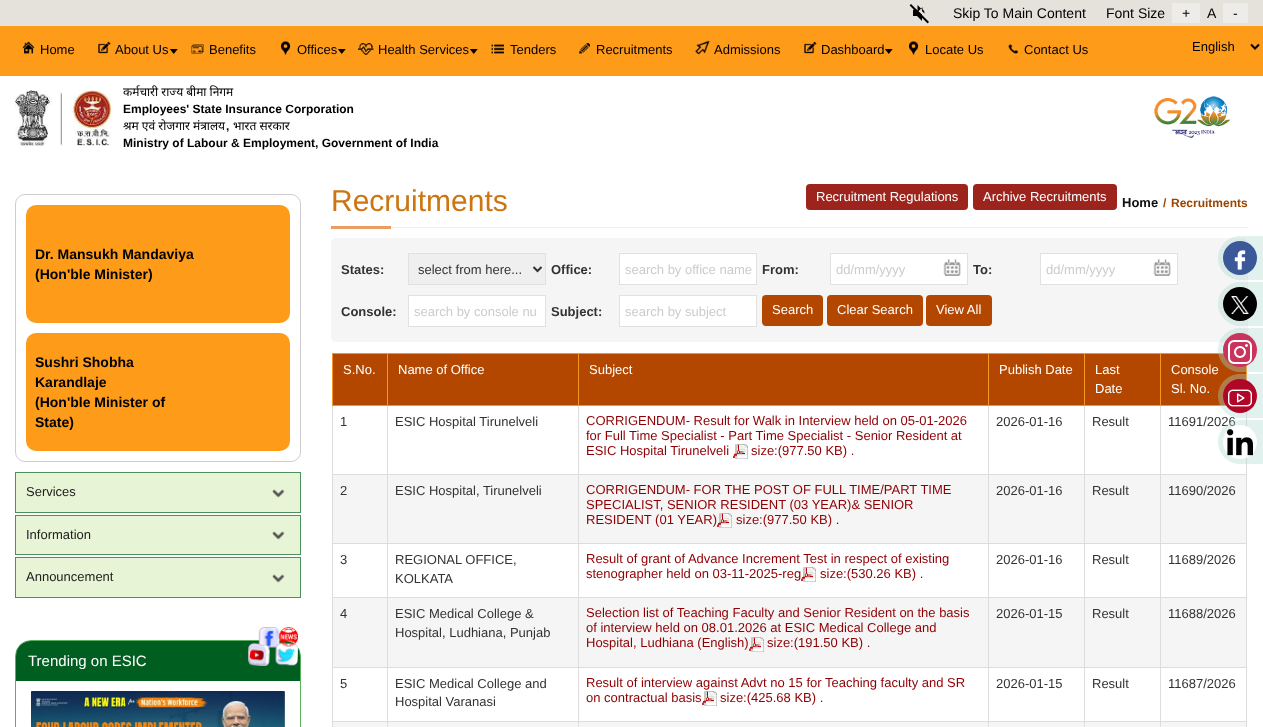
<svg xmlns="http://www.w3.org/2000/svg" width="1263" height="727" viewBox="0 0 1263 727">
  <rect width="100%" height="100%" fill="rgb(255,255,255)"/>
  <rect x="0" y="26" width="1263" height="50" fill="rgb(254,155,25)"/>
  <rect x="0" y="0" width="1263" height="26" fill="rgb(229,226,219)"/>
  <image x="909" y="4" width="20" height="20" href="pic1.png"/>
  <g font-family="Liberation Sans" font-size="14" fill="rgb(0,0,0)">
    <text x="953" y="18">Skip To Main Content</text>
    <text x="1106" y="18">Font Size</text>
  </g>
  <rect x="1172" y="3" width="28" height="20" fill="rgb(238,236,232)"/>
  <g font-family="Liberation Sans" font-size="14" fill="rgb(0,0,0)">
    <text x="1182" y="18">+</text>
    <text x="1207" y="18">A</text>
  </g>
  <rect x="1223" y="3" width="25" height="20" fill="rgb(238,236,232)"/>
  <text x="1233" y="18" font-family="Liberation Sans" font-size="14" fill="rgb(0,0,0)">-</text>
  <image x="22" y="41" width="13" height="13" href="pic2.png"/>
  <text x="40" y="54" font-family="Liberation Sans" font-size="13" fill="rgb(0,0,0)">Home</text>
  <image x="98" y="41" width="13" height="13" href="pic3.png"/>
  <text x="115" y="54" font-family="Liberation Sans" font-size="13" fill="rgb(0,0,0)">About Us</text>
  <image x="169" y="49" width="9" height="5" href="pic4.png"/>
  <image x="191" y="44" width="13" height="10" href="pic5.png"/>
  <text x="209" y="54" font-family="Liberation Sans" font-size="13" fill="rgb(0,0,0)">Benefits</text>
  <image x="281" y="41" width="10" height="14" href="pic6.png"/>
  <text x="297" y="54" font-family="Liberation Sans" font-size="13" fill="rgb(0,0,0)">Offices</text>
  <image x="337" y="49" width="9" height="5" href="pic4.png"/>
  <image x="358" y="43" width="16" height="12" href="pic7.png"/>
  <text x="378" y="54" font-family="Liberation Sans" font-size="13" fill="rgb(0,0,0)">Health Services</text>
  <image x="469" y="49" width="9" height="5" href="pic4.png"/>
  <image x="491" y="44" width="13" height="10" href="pic8.png"/>
  <text x="510" y="54" font-family="Liberation Sans" font-size="13" fill="rgb(0,0,0)">Tenders</text>
  <image x="579" y="43" width="11" height="11" href="pic9.png"/>
  <text x="596" y="54" font-family="Liberation Sans" font-size="13" fill="rgb(0,0,0)">Recruitments</text>
  <image x="695" y="40" width="15" height="15" href="pic10.png"/>
  <text x="714" y="54" font-family="Liberation Sans" font-size="13" fill="rgb(0,0,0)">Admissions</text>
  <image x="804" y="41" width="13" height="13" href="pic3.png"/>
  <text x="821" y="54" font-family="Liberation Sans" font-size="13" fill="rgb(0,0,0)">Dashboard</text>
  <image x="884" y="49" width="9" height="5" href="pic4.png"/>
  <image x="909" y="41" width="10" height="14" href="pic6.png"/>
  <text x="925" y="54" font-family="Liberation Sans" font-size="13" fill="rgb(0,0,0)">Locate Us</text>
  <image x="1008" y="44" width="10" height="10" href="pic11.png"/>
  <text x="1024" y="54" font-family="Liberation Sans" font-size="13" fill="rgb(0,0,0)">Contact Us</text>
  <path d="M1251 44.5L1255 48.5L1259 44.5" fill="none" stroke="rgb(0,0,0)" stroke-width="2"/>
  <text x="1192" y="51" font-family="Liberation Sans" font-size="13" fill="rgb(0,0,0)">English</text>
  <image x="15" y="90" width="99" height="56" href="pic12.png"/>
  <text x="123" y="96" font-family="Noto Sans" font-size="12" fill="rgb(0,0,0)">कर्मचारी राज्य बीमा निगम</text>
  <text x="123" y="113" font-family="Liberation Sans" font-size="12" font-weight="bold" fill="rgb(0,0,0)">Employees' State Insurance Corporation</text>
  <text x="123" y="130" font-family="Noto Sans" font-size="12" fill="rgb(0,0,0)">श्रम एवं रोजगार मंत्रालय</text>
  <text x="226" y="130" font-family="Liberation Sans" font-size="12" font-weight="bold" fill="rgb(0,0,0)">,</text>
  <text x="233" y="130" font-family="Noto Sans" font-size="12" fill="rgb(0,0,0)">भारत सरकार</text>
  <text x="123" y="147" font-family="Liberation Sans" font-size="12" font-weight="bold" fill="rgb(0,0,0)">Ministry of Labour &amp; Employment, Government of India</text>
  <image x="1154" y="96" width="77" height="42" href="pic13.png"/>
  <rect x="15.5" y="194.5" width="285" height="267" rx="9.5" fill="none" stroke="rgb(210,203,203)"/>
  <rect x="26" y="205" width="264" height="118" rx="10" fill="rgb(254,155,25)"/>
  <g font-family="Liberation Sans" font-size="14" font-weight="bold" fill="rgb(0,0,0)">
    <text>
      <tspan x="35" y="259">Dr. Mansukh Mandaviya</tspan>
      <tspan x="35" y="279">(Hon'ble Minister)</tspan>
    </text>
  </g>
  <rect x="26" y="333" width="264" height="118" rx="10" fill="rgb(254,155,25)"/>
  <g font-family="Liberation Sans" font-size="14" font-weight="bold" fill="rgb(0,0,0)">
    <text>
      <tspan x="35" y="367">Sushri Shobha</tspan>
      <tspan x="35" y="387">Karandlaje</tspan>
      <tspan x="35" y="407">(Hon'ble Minister of</tspan>
      <tspan x="35" y="427">State)</tspan>
    </text>
  </g>
  <rect x="15.5" y="472.5" width="285" height="40" fill="none" stroke="rgb(77,145,90)"/>
  <rect x="16" y="473" width="284" height="39" fill="rgb(232,244,214)"/>
  <image x="272" y="489" width="13" height="9" href="pic14.png"/>
  <text x="26" y="496" font-family="Liberation Sans" font-size="13" fill="rgb(33,33,33)">Services</text>
  <rect x="15.5" y="515.5" width="285" height="39" fill="none" stroke="rgb(77,145,90)"/>
  <rect x="16" y="516" width="284" height="38" fill="rgb(232,244,214)"/>
  <image x="272" y="531" width="13" height="9" href="pic14.png"/>
  <text x="26" y="539" font-family="Liberation Sans" font-size="13" fill="rgb(33,33,33)">Information</text>
  <rect x="15.5" y="557.5" width="285" height="40" fill="none" stroke="rgb(77,145,90)"/>
  <rect x="16" y="558" width="284" height="39" fill="rgb(232,244,214)"/>
  <image x="272" y="574" width="13" height="9" href="pic14.png"/>
  <text x="26" y="581" font-family="Liberation Sans" font-size="13" fill="rgb(33,33,33)">Announcement</text>
  <rect x="15.5" y="640.5" width="285" height="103" rx="15.5" fill="none" stroke="rgb(90,175,96)"/>
  <path d="M31 641H285C293.5 641 300 647.5 300 656V681H16V656C16 647.5 22.5 641 31 641Z" fill="rgb(0,94,32)"/>
  <text x="28" y="666" font-family="Liberation Sans" font-size="15" fill="rgb(255,255,255)">Trending on ESIC</text>
  <image x="248" y="627" width="50" height="39" href="pic15.png"/>
  <image x="31" y="691" width="254" height="36" href="pic16.png"/>
  <rect x="391" y="227" width="857" height="1" fill="rgb(239,239,239)"/>
  <text x="331" y="211" font-family="Liberation Sans" font-size="30" fill="rgb(204,117,17)">Recruitments</text>
  <rect x="806" y="184" width="162" height="26" rx="4" fill="rgb(157,36,29)"/>
  <text x="816" y="201" font-family="Liberation Sans" font-size="13" fill="rgb(255,255,255)">Recruitment Regulations</text>
  <rect x="973" y="184" width="144" height="26" rx="4" fill="rgb(157,36,29)"/>
  <text x="983" y="201" font-family="Liberation Sans" font-size="13" fill="rgb(255,255,255)">Archive Recruitments</text>
  <rect x="331" y="226" width="60" height="3" fill="rgb(236,157,98)"/>
  <rect x="331" y="238" width="917" height="104" rx="5" fill="rgb(245,245,245)"/>
  <text x="341" y="274" font-family="Liberation Sans" font-size="13" font-weight="bold" fill="rgb(51,51,51)">States:</text>
  <rect x="408.5" y="253.5" width="137" height="31" fill="rgb(239,239,239)" stroke="rgb(225,225,225)"/>
  <path d="M533.5 267L537.5 271L541.5 267" fill="none" stroke="rgb(51,51,51)" stroke-width="2"/>
  <text x="418" y="274" font-family="Liberation Sans" font-size="13" fill="rgb(51,51,51)">select from here...</text>
  <text x="551" y="274" font-family="Liberation Sans" font-size="13" font-weight="bold" fill="rgb(51,51,51)">Office:</text>
  <rect x="619.5" y="253.5" width="137" height="31" fill="rgb(255,255,255)" stroke="rgb(225,225,225)"/>
  <text x="625" y="274" font-family="Liberation Sans" font-size="13" fill="rgb(204,204,204)">search by office name</text>
  <text x="762" y="274" font-family="Liberation Sans" font-size="13" font-weight="bold" fill="rgb(51,51,51)">From:</text>
  <rect x="831" y="254" width="136" height="30" fill="rgb(255,255,255)"/>
  <image x="943" y="259" width="18" height="17" href="pic17.png"/>
  <rect x="830.5" y="253.5" width="137" height="31" fill="none" stroke="rgb(225,225,225)"/>
  <text x="836" y="274" font-family="Liberation Sans" font-size="13" fill="rgb(204,204,204)">dd/mm/yyyy</text>
  <text x="973" y="274" font-family="Liberation Sans" font-size="13" font-weight="bold" fill="rgb(51,51,51)">To:</text>
  <rect x="1041" y="254" width="136" height="30" fill="rgb(255,255,255)"/>
  <image x="1153" y="259" width="18" height="17" href="pic17.png"/>
  <rect x="1040.5" y="253.5" width="137" height="31" fill="none" stroke="rgb(225,225,225)"/>
  <text x="1046" y="274" font-family="Liberation Sans" font-size="13" fill="rgb(204,204,204)">dd/mm/yyyy</text>
  <text x="341" y="316" font-family="Liberation Sans" font-size="13" font-weight="bold" fill="rgb(51,51,51)">Console:</text>
  <rect x="408.5" y="295.5" width="137" height="31" fill="rgb(255,255,255)" stroke="rgb(225,225,225)"/>
  <text x="414" y="316" font-family="Liberation Sans" font-size="13" fill="rgb(204,204,204)">search by console nu</text>
  <text x="551" y="316" font-family="Liberation Sans" font-size="13" font-weight="bold" fill="rgb(51,51,51)">Subject:</text>
  <rect x="619.5" y="295.5" width="137" height="31" fill="rgb(255,255,255)" stroke="rgb(225,225,225)"/>
  <text x="625" y="316" font-family="Liberation Sans" font-size="13" fill="rgb(204,204,204)">search by subject</text>
  <rect x="762" y="295" width="61" height="31" rx="4" fill="rgb(179,71,0)"/>
  <text x="772" y="314" font-family="Liberation Sans" font-size="13" fill="rgb(255,255,255)">Search</text>
  <rect x="827" y="295" width="96" height="31" rx="4" fill="rgb(179,71,0)"/>
  <text x="837" y="314" font-family="Liberation Sans" font-size="13" fill="rgb(255,255,255)">Clear Search</text>
  <rect x="926" y="295" width="66" height="31" rx="4" fill="rgb(179,71,0)"/>
  <text x="936" y="314" font-family="Liberation Sans" font-size="13" fill="rgb(255,255,255)">View All</text>
  <rect x="333" y="354" width="54" height="51" fill="rgb(179,71,0)"/>
  <rect x="1160" y="353" width="64" height="1" fill="rgb(242,150,30)"/>
  <rect x="1160" y="474" width="87" height="1" fill="rgb(221,221,221)"/>
  <rect x="1160" y="543" width="87" height="1" fill="rgb(221,221,221)"/>
  <rect x="1160" y="597" width="87" height="1" fill="rgb(221,221,221)"/>
  <rect x="1160" y="667" width="87" height="1" fill="rgb(221,221,221)"/>
  <rect x="1160" y="721" width="87" height="1" fill="rgb(221,221,221)"/>
  <rect x="332" y="722" width="915" height="5" fill="rgb(245,245,245)"/>
  <rect x="1160" y="721" width="1" height="6" fill="rgb(221,221,221)"/>
  <rect x="1084" y="721" width="77" height="1" fill="rgb(221,221,221)"/>
  <rect x="1160" y="667" width="1" height="55" fill="rgb(221,221,221)"/>
  <rect x="1084" y="667" width="77" height="1" fill="rgb(221,221,221)"/>
  <rect x="1160" y="597" width="1" height="71" fill="rgb(221,221,221)"/>
  <rect x="1084" y="597" width="77" height="1" fill="rgb(221,221,221)"/>
  <rect x="1160" y="543" width="1" height="55" fill="rgb(221,221,221)"/>
  <rect x="1084" y="543" width="77" height="1" fill="rgb(221,221,221)"/>
  <rect x="1160" y="474" width="1" height="70" fill="rgb(221,221,221)"/>
  <rect x="1084" y="474" width="77" height="1" fill="rgb(221,221,221)"/>
  <rect x="1160" y="405" width="1" height="70" fill="rgb(221,221,221)"/>
  <rect x="1160" y="405" width="67" height="1" fill="rgb(242,150,30)"/>
  <rect x="1160" y="353" width="1" height="53" fill="rgb(242,150,30)"/>
  <rect x="1084" y="353" width="77" height="1" fill="rgb(242,150,30)"/>
  <rect x="1084" y="721" width="1" height="6" fill="rgb(221,221,221)"/>
  <rect x="988" y="721" width="97" height="1" fill="rgb(221,221,221)"/>
  <rect x="1084" y="667" width="1" height="55" fill="rgb(221,221,221)"/>
  <rect x="988" y="667" width="97" height="1" fill="rgb(221,221,221)"/>
  <rect x="1084" y="597" width="1" height="71" fill="rgb(221,221,221)"/>
  <rect x="988" y="597" width="97" height="1" fill="rgb(221,221,221)"/>
  <rect x="1084" y="543" width="1" height="55" fill="rgb(221,221,221)"/>
  <rect x="988" y="543" width="97" height="1" fill="rgb(221,221,221)"/>
  <rect x="1084" y="474" width="1" height="70" fill="rgb(221,221,221)"/>
  <rect x="988" y="474" width="97" height="1" fill="rgb(221,221,221)"/>
  <rect x="1084" y="405" width="1" height="70" fill="rgb(221,221,221)"/>
  <rect x="1084" y="405" width="77" height="1" fill="rgb(242,150,30)"/>
  <rect x="1084" y="353" width="1" height="53" fill="rgb(242,150,30)"/>
  <rect x="988" y="353" width="97" height="1" fill="rgb(242,150,30)"/>
  <rect x="988" y="721" width="1" height="6" fill="rgb(221,221,221)"/>
  <rect x="578" y="721" width="411" height="1" fill="rgb(221,221,221)"/>
  <rect x="988" y="667" width="1" height="55" fill="rgb(221,221,221)"/>
  <rect x="578" y="667" width="411" height="1" fill="rgb(221,221,221)"/>
  <rect x="988" y="597" width="1" height="71" fill="rgb(221,221,221)"/>
  <rect x="578" y="597" width="411" height="1" fill="rgb(221,221,221)"/>
  <rect x="988" y="543" width="1" height="55" fill="rgb(221,221,221)"/>
  <rect x="578" y="543" width="411" height="1" fill="rgb(221,221,221)"/>
  <rect x="988" y="474" width="1" height="70" fill="rgb(221,221,221)"/>
  <rect x="578" y="474" width="411" height="1" fill="rgb(221,221,221)"/>
  <rect x="988" y="405" width="1" height="70" fill="rgb(221,221,221)"/>
  <rect x="988" y="405" width="97" height="1" fill="rgb(242,150,30)"/>
  <rect x="988" y="353" width="1" height="53" fill="rgb(242,150,30)"/>
  <rect x="578" y="353" width="411" height="1" fill="rgb(242,150,30)"/>
  <rect x="578" y="721" width="1" height="6" fill="rgb(221,221,221)"/>
  <rect x="387" y="721" width="192" height="1" fill="rgb(221,221,221)"/>
  <rect x="578" y="667" width="1" height="55" fill="rgb(221,221,221)"/>
  <rect x="387" y="667" width="192" height="1" fill="rgb(221,221,221)"/>
  <rect x="578" y="597" width="1" height="71" fill="rgb(221,221,221)"/>
  <rect x="387" y="597" width="192" height="1" fill="rgb(221,221,221)"/>
  <rect x="578" y="543" width="1" height="55" fill="rgb(221,221,221)"/>
  <rect x="387" y="543" width="192" height="1" fill="rgb(221,221,221)"/>
  <rect x="578" y="474" width="1" height="70" fill="rgb(221,221,221)"/>
  <rect x="387" y="474" width="192" height="1" fill="rgb(221,221,221)"/>
  <rect x="578" y="405" width="1" height="70" fill="rgb(221,221,221)"/>
  <rect x="578" y="405" width="411" height="1" fill="rgb(242,150,30)"/>
  <rect x="578" y="353" width="1" height="53" fill="rgb(242,150,30)"/>
  <rect x="387" y="353" width="192" height="1" fill="rgb(242,150,30)"/>
  <rect x="387" y="721" width="1" height="6" fill="rgb(221,221,221)"/>
  <rect x="332" y="721" width="56" height="1" fill="rgb(221,221,221)"/>
  <rect x="387" y="667" width="1" height="55" fill="rgb(221,221,221)"/>
  <rect x="332" y="667" width="56" height="1" fill="rgb(221,221,221)"/>
  <rect x="387" y="597" width="1" height="71" fill="rgb(221,221,221)"/>
  <rect x="332" y="597" width="56" height="1" fill="rgb(221,221,221)"/>
  <rect x="387" y="543" width="1" height="55" fill="rgb(221,221,221)"/>
  <rect x="332" y="543" width="56" height="1" fill="rgb(221,221,221)"/>
  <rect x="387" y="474" width="1" height="70" fill="rgb(221,221,221)"/>
  <rect x="332" y="474" width="56" height="1" fill="rgb(221,221,221)"/>
  <rect x="387" y="405" width="1" height="70" fill="rgb(221,221,221)"/>
  <rect x="387" y="405" width="192" height="1" fill="rgb(242,150,30)"/>
  <rect x="387" y="353" width="1" height="53" fill="rgb(242,150,30)"/>
  <rect x="332" y="353" width="56" height="1" fill="rgb(242,150,30)"/>
  <rect x="332" y="721" width="1" height="6" fill="rgb(221,221,221)"/>
  <rect x="332" y="667" width="1" height="55" fill="rgb(221,221,221)"/>
  <rect x="332" y="597" width="1" height="71" fill="rgb(221,221,221)"/>
  <rect x="332" y="543" width="1" height="55" fill="rgb(221,221,221)"/>
  <rect x="332" y="405" width="1" height="139" fill="rgb(221,221,221)"/>
  <rect x="332" y="405" width="56" height="1" fill="rgb(242,150,30)"/>
  <rect x="332" y="353" width="1" height="53" fill="rgb(242,150,30)"/>
  <text x="343" y="374" font-family="Liberation Sans" font-size="13" fill="rgb(255,255,255)">S.No.</text>
  <rect x="388" y="354" width="190" height="51" fill="rgb(179,71,0)"/>
  <text x="398" y="374" font-family="Liberation Sans" font-size="13" fill="rgb(255,255,255)">Name of Office</text>
  <rect x="579" y="354" width="409" height="51" fill="rgb(179,71,0)"/>
  <text x="589" y="374" font-family="Liberation Sans" font-size="13" fill="rgb(255,255,255)">Subject</text>
  <rect x="989" y="354" width="95" height="51" fill="rgb(179,71,0)"/>
  <text x="999" y="374" font-family="Liberation Sans" font-size="13" fill="rgb(255,255,255)">Publish Date</text>
  <rect x="1085" y="354" width="75" height="51" fill="rgb(179,71,0)"/>
  <g font-family="Liberation Sans" font-size="13" fill="rgb(255,255,255)">
    <text>
      <tspan x="1095" y="374">Last</tspan>
      <tspan x="1095" y="393">Date</tspan>
    </text>
  </g>
  <rect x="1161" y="354" width="85" height="51" fill="rgb(179,71,0)"/>
  <rect x="1246" y="365" width="1" height="16" fill="rgb(242,150,30)"/>
  <g font-family="Liberation Sans" font-size="13" fill="rgb(255,255,255)">
    <text>
      <tspan x="1171" y="374">Console</tspan>
      <tspan x="1171" y="393">Sl. No.</tspan>
    </text>
  </g>
  <g font-family="Liberation Sans" font-size="13" fill="rgb(51,51,51)">
    <text x="340" y="426">1</text>
    <text x="395" y="426">ESIC Hospital Tirunelveli</text>
  </g>
  <g font-family="Liberation Sans" font-size="13" fill="rgb(143,0,4)">
    <text>
      <tspan x="586" y="425">CORRIGENDUM- Result for Walk in Interview held on 05-01-2026</tspan>
      <tspan x="586" y="440">for Full Time Specialist - Part Time Specialist - Senior Resident at</tspan>
      <tspan x="586" y="455">ESIC Hospital Tirunelveli</tspan>
    </text>
  </g>
  <image x="733" y="444" width="15" height="15" href="pic18.png"/>
  <text x="751" y="455" font-family="Liberation Sans" font-size="13" fill="rgb(143,0,4)">size:(977.50 KB) .</text>
  <g font-family="Liberation Sans" font-size="13" fill="rgb(51,51,51)">
    <text x="996" y="426">2026-01-16</text>
    <text x="1092" y="426">Result</text>
    <text x="1168" y="426">11691/2026</text>
  </g>
  <rect x="333" y="475" width="54" height="68" fill="rgb(245,245,245)"/>
  <text x="340" y="495" font-family="Liberation Sans" font-size="13" fill="rgb(51,51,51)">2</text>
  <rect x="388" y="475" width="190" height="68" fill="rgb(245,245,245)"/>
  <text x="395" y="495" font-family="Liberation Sans" font-size="13" fill="rgb(51,51,51)">ESIC Hospital, Tirunelveli</text>
  <rect x="579" y="475" width="409" height="68" fill="rgb(245,245,245)"/>
  <g font-family="Liberation Sans" font-size="13" fill="rgb(143,0,4)">
    <text>
      <tspan x="586" y="494">CORRIGENDUM- FOR THE POST OF FULL TIME/PART TIME</tspan>
      <tspan x="586" y="509">SPECIALIST, SENIOR RESIDENT (03 YEAR)&amp; SENIOR</tspan>
      <tspan x="586" y="524">RESIDENT (01 YEAR)</tspan>
    </text>
  </g>
  <image x="717" y="513" width="15" height="15" href="pic19.png"/>
  <text x="736" y="524" font-family="Liberation Sans" font-size="13" fill="rgb(143,0,4)">size:(977.50 KB) .</text>
  <rect x="989" y="475" width="95" height="68" fill="rgb(245,245,245)"/>
  <text x="996" y="495" font-family="Liberation Sans" font-size="13" fill="rgb(51,51,51)">2026-01-16</text>
  <rect x="1085" y="475" width="75" height="68" fill="rgb(245,245,245)"/>
  <text x="1092" y="495" font-family="Liberation Sans" font-size="13" fill="rgb(51,51,51)">Result</text>
  <rect x="1161" y="475" width="85" height="68" fill="rgb(245,245,245)"/>
  <rect x="1246" y="721" width="1" height="6" fill="rgb(221,221,221)"/>
  <rect x="1246" y="667" width="1" height="55" fill="rgb(221,221,221)"/>
  <rect x="1246" y="597" width="1" height="71" fill="rgb(221,221,221)"/>
  <rect x="1246" y="543" width="1" height="55" fill="rgb(221,221,221)"/>
  <rect x="1246" y="405" width="1" height="139" fill="rgb(221,221,221)"/>
  <g font-family="Liberation Sans" font-size="13" fill="rgb(51,51,51)">
    <text x="1168" y="495">11690/2026</text>
    <text x="340" y="564">3</text>
    <text>
      <tspan x="395" y="564">REGIONAL OFFICE,</tspan>
      <tspan x="395" y="583">KOLKATA</tspan>
    </text>
  </g>
  <g font-family="Liberation Sans" font-size="13" fill="rgb(143,0,4)">
    <text>
      <tspan x="586" y="563">Result of grant of Advance Increment Test in respect of existing</tspan>
      <tspan x="586" y="578">stenographer held on 03-11-2025-reg</tspan>
    </text>
  </g>
  <image x="801" y="567" width="15" height="15" href="pic18.png"/>
  <text x="820" y="578" font-family="Liberation Sans" font-size="13" fill="rgb(143,0,4)">size:(530.26 KB) .</text>
  <g font-family="Liberation Sans" font-size="13" fill="rgb(51,51,51)">
    <text x="996" y="564">2026-01-16</text>
    <text x="1092" y="564">Result</text>
    <text x="1168" y="564">11689/2026</text>
  </g>
  <rect x="333" y="598" width="54" height="69" fill="rgb(245,245,245)"/>
  <text x="340" y="618" font-family="Liberation Sans" font-size="13" fill="rgb(51,51,51)">4</text>
  <rect x="388" y="598" width="190" height="69" fill="rgb(245,245,245)"/>
  <g font-family="Liberation Sans" font-size="13" fill="rgb(51,51,51)">
    <text>
      <tspan x="395" y="618">ESIC Medical College &amp;</tspan>
      <tspan x="395" y="637">Hospital, Ludhiana, Punjab</tspan>
    </text>
  </g>
  <rect x="579" y="598" width="409" height="69" fill="rgb(245,245,245)"/>
  <g font-family="Liberation Sans" font-size="13" fill="rgb(143,0,4)">
    <text>
      <tspan x="586" y="617">Selection list of Teaching Faculty and Senior Resident on the basis</tspan>
      <tspan x="586" y="632">of interview held on 08.01.2026 at ESIC Medical College and</tspan>
      <tspan x="586" y="647">Hospital, Ludhiana (English)</tspan>
    </text>
  </g>
  <image x="749" y="637" width="15" height="15" href="pic19.png"/>
  <text x="767" y="647" font-family="Liberation Sans" font-size="13" fill="rgb(143,0,4)">size:(191.50 KB) .</text>
  <rect x="989" y="598" width="95" height="69" fill="rgb(245,245,245)"/>
  <text x="996" y="618" font-family="Liberation Sans" font-size="13" fill="rgb(51,51,51)">2026-01-15</text>
  <rect x="1085" y="598" width="75" height="69" fill="rgb(245,245,245)"/>
  <text x="1092" y="618" font-family="Liberation Sans" font-size="13" fill="rgb(51,51,51)">Result</text>
  <rect x="1161" y="598" width="85" height="69" fill="rgb(245,245,245)"/>
  <g font-family="Liberation Sans" font-size="13" fill="rgb(51,51,51)">
    <text x="1168" y="618">11688/2026</text>
    <text x="340" y="688">5</text>
    <text>
      <tspan x="395" y="688">ESIC Medical College and</tspan>
      <tspan x="395" y="706">Hospital Varanasi</tspan>
    </text>
  </g>
  <g font-family="Liberation Sans" font-size="13" fill="rgb(143,0,4)">
    <text>
      <tspan x="586" y="687">Result of interview against Advt no 15 for Teaching faculty and SR</tspan>
      <tspan x="586" y="702">on contractual basis</tspan>
    </text>
  </g>
  <image x="702" y="691" width="15" height="15" href="pic18.png"/>
  <text x="720" y="702" font-family="Liberation Sans" font-size="13" fill="rgb(143,0,4)">size:(425.68 KB) .</text>
  <g font-family="Liberation Sans" font-size="13" fill="rgb(51,51,51)">
    <text x="996" y="688">2026-01-15</text>
    <text x="1092" y="688">Result</text>
    <text x="1168" y="688">11687/2026</text>
  </g>
  <text x="1122" y="207" font-family="Liberation Sans" font-size="13" font-weight="bold" fill="rgb(16,16,16)">Home</text>
  <g font-family="Liberation Sans" font-size="12" font-weight="bold" fill="rgb(153,68,0)">
    <text x="1163" y="207">/</text>
    <text x="1171" y="207">Recruitments</text>
  </g>
  <path d="M1240 236H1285V280H1240C1228 280 1218 270 1218 258C1218 246 1228 236 1240 236Z" fill="rgba(171,219,209,0.36)"/>
  <circle cx="1240" cy="258" r="17" fill="rgb(59,89,153)"/>
  <image x="1234" y="250" width="12" height="20" href="pic20.png"/>
  <path d="M1240 282H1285V326H1240C1228 326 1218 316 1218 304C1218 292 1228 282 1240 282Z" fill="rgba(171,219,209,0.36)"/>
  <circle cx="1240" cy="304" r="17" fill="rgb(0,0,0)"/>
  <image x="1231" y="296" width="18" height="18" href="pic21.png"/>
  <path d="M1240 328H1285V372H1240C1228 372 1218 362 1218 350C1218 338 1228 328 1240 328Z" fill="rgba(171,219,209,0.36)"/>
  <circle cx="1240" cy="350" r="17" fill="rgb(201,52,92)"/>
  <image x="1228" y="340" width="24" height="24" href="pic22.png"/>
  <path d="M1240 374H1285V418H1240C1228 418 1218 408 1218 396C1218 384 1228 374 1240 374Z" fill="rgba(171,219,209,0.36)"/>
  <circle cx="1240" cy="396" r="17" fill="rgb(176,7,41)"/>
  <image x="1228" y="389" width="24" height="18" href="pic23.png"/>
  <path d="M1240 420H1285V464H1240C1228 464 1218 454 1218 442C1218 430 1228 420 1240 420Z" fill="rgba(171,219,209,0.36)"/>
  <circle cx="1240" cy="442" r="17" fill="rgb(255,255,255)"/>
  <image x="1227" y="429" width="26" height="27" href="pic24.png"/>
</svg>
